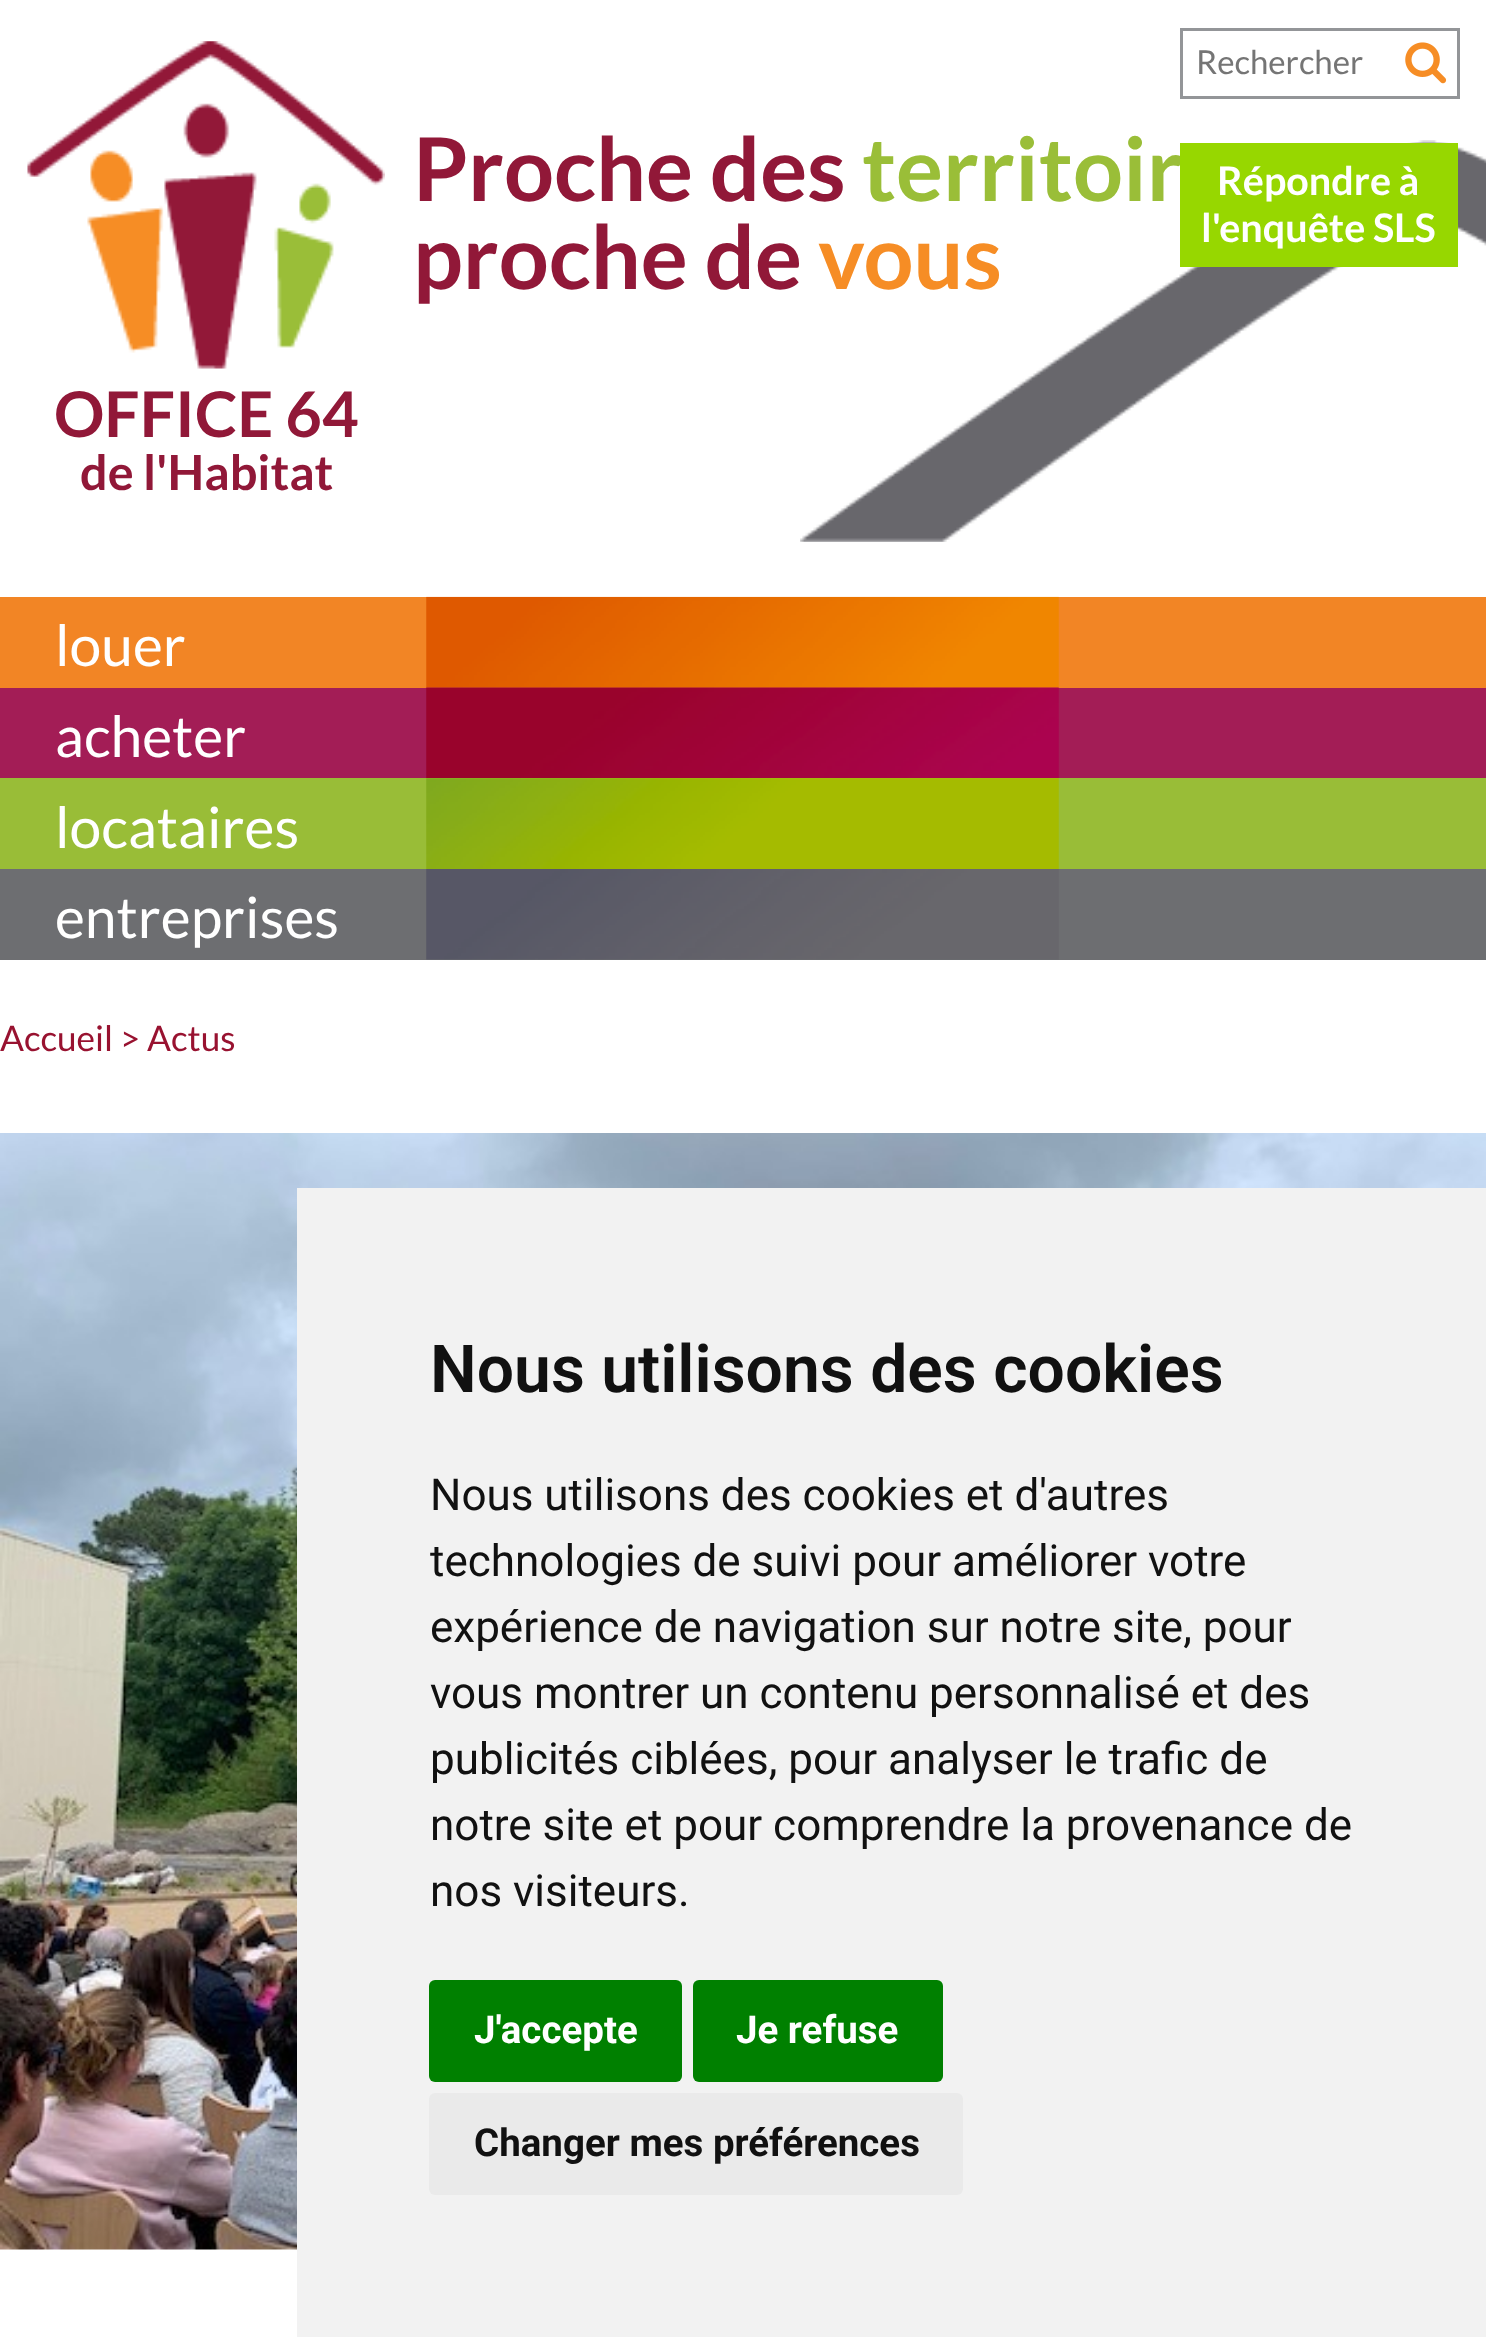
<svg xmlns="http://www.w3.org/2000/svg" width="1486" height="2337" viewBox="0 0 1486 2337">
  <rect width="100%" height="100%" fill="rgb(255,255,255)"/>
  <image x="800" y="140" width="686" height="402" href="pic1.png"/>
  <text x="413" y="201" font-family="Lato" font-size="88" font-weight="bold" fill="rgb(145,24,56)">Proche des</text>
  <text x="862" y="201" font-family="Lato" font-size="88" font-weight="bold" fill="rgb(154,190,56)">territoir</text>
  <text x="413" y="289" font-family="Lato" font-size="88" font-weight="bold" fill="rgb(145,24,56)">proche de</text>
  <text x="818" y="289" font-family="Lato" font-size="88" font-weight="bold" fill="rgb(246,141,37)">vous</text>
  <rect x="1181.5" y="29.5" width="277" height="68" fill="none" stroke="rgb(147,149,152)" stroke-width="3"/>
  <text x="1196" y="74" font-family="Lato" font-size="33" fill="rgb(117,117,117)">Rechercher</text>
  <image x="1405" y="42" width="42" height="42" href="pic2.png"/>
  <rect x="1180" y="143" width="278" height="124" fill="rgb(151,215,0)"/>
  <g font-family="Lato" font-size="39.5" font-weight="bold" fill="rgb(255,255,255)">
    <text x="1217" y="195">Répondre à</text>
    <text x="1201" y="242">l'enquête SLS</text>
  </g>
  <image x="27" y="41" width="358" height="328" href="pic3.png"/>
  <text x="54" y="437" font-family="Lato" font-size="63" font-weight="bold" fill="rgb(145,24,56)">OFFICE 64</text>
  <text x="80" y="490" font-family="Lato" font-size="48.5" font-weight="bold" fill="rgb(145,24,56)">de l'Habitat</text>
  <rect x="0" y="597" width="1486" height="91" fill="rgb(242,133,37)"/>
  <image x="426" y="596" width="633" height="92" href="pic4.png"/>
  <text x="55" y="666" font-family="Lato" font-size="57" fill="rgb(255,255,255)">louer</text>
  <rect x="0" y="688" width="1486" height="90" fill="rgb(163,29,86)"/>
  <image x="426" y="687" width="633" height="91" href="pic5.png"/>
  <text x="55" y="757" font-family="Lato" font-size="57" fill="rgb(255,255,255)">acheter</text>
  <rect x="0" y="778" width="1486" height="91" fill="rgb(153,189,55)"/>
  <image x="426" y="778" width="633" height="91" href="pic6.png"/>
  <text x="55" y="848" font-family="Lato" font-size="57" fill="rgb(255,255,255)">locataires</text>
  <rect x="0" y="869" width="1486" height="91" fill="rgb(109,110,113)"/>
  <image x="426" y="869" width="633" height="91" href="pic7.png"/>
  <text x="55" y="938" font-family="Lato" font-size="57" fill="rgb(255,255,255)">entreprises</text>
  <text x="0" y="1051" font-family="Lato" font-size="35.25" fill="rgb(152,18,48)">Accueil &gt; Actus</text>
  <image x="0" y="1133" width="1486" height="1117" href="pic8.png"/>
  <rect x="297" y="1188" width="1189" height="1149" fill="rgb(242,242,242)"/>
  <text x="430" y="1392" font-family="Roboto" font-size="66" font-weight="600" fill="rgb(17,17,17)">Nous utilisons des cookies</text>
  <g font-family="Roboto" font-size="44" fill="rgb(17,17,17)">
    <text>
      <tspan x="430" y="1510">Nous utilisons des cookies et d'autres</tspan>
      <tspan x="430" y="1576">technologies de suivi pour améliorer votre</tspan>
      <tspan x="430" y="1642">expérience de navigation sur notre site, pour</tspan>
      <tspan x="430" y="1708">vous montrer un contenu personnalisé et des</tspan>
      <tspan x="430" y="1774">publicités ciblées, pour analyser le trafic de</tspan>
      <tspan x="430" y="1840">notre site et pour comprendre la provenance de</tspan>
      <tspan x="430" y="1906">nos visiteurs.</tspan>
    </text>
  </g>
  <rect x="429" y="1980" width="253" height="102" rx="6" fill="rgb(0,128,0)"/>
  <text x="474" y="2043" font-family="Roboto" font-size="38.5" font-weight="bold" fill="rgb(255,255,255)">J'accepte</text>
  <rect x="693" y="1980" width="250" height="102" rx="6" fill="rgb(0,128,0)"/>
  <text x="736" y="2043" font-family="Roboto" font-size="38.5" font-weight="bold" fill="rgb(255,255,255)">Je refuse</text>
  <rect x="429" y="2093" width="534" height="102" rx="6" fill="rgb(234,234,234)"/>
  <text x="474" y="2156" font-family="Roboto" font-size="38.5" font-weight="bold" fill="rgb(17,17,17)">Changer mes préférences</text>
</svg>
